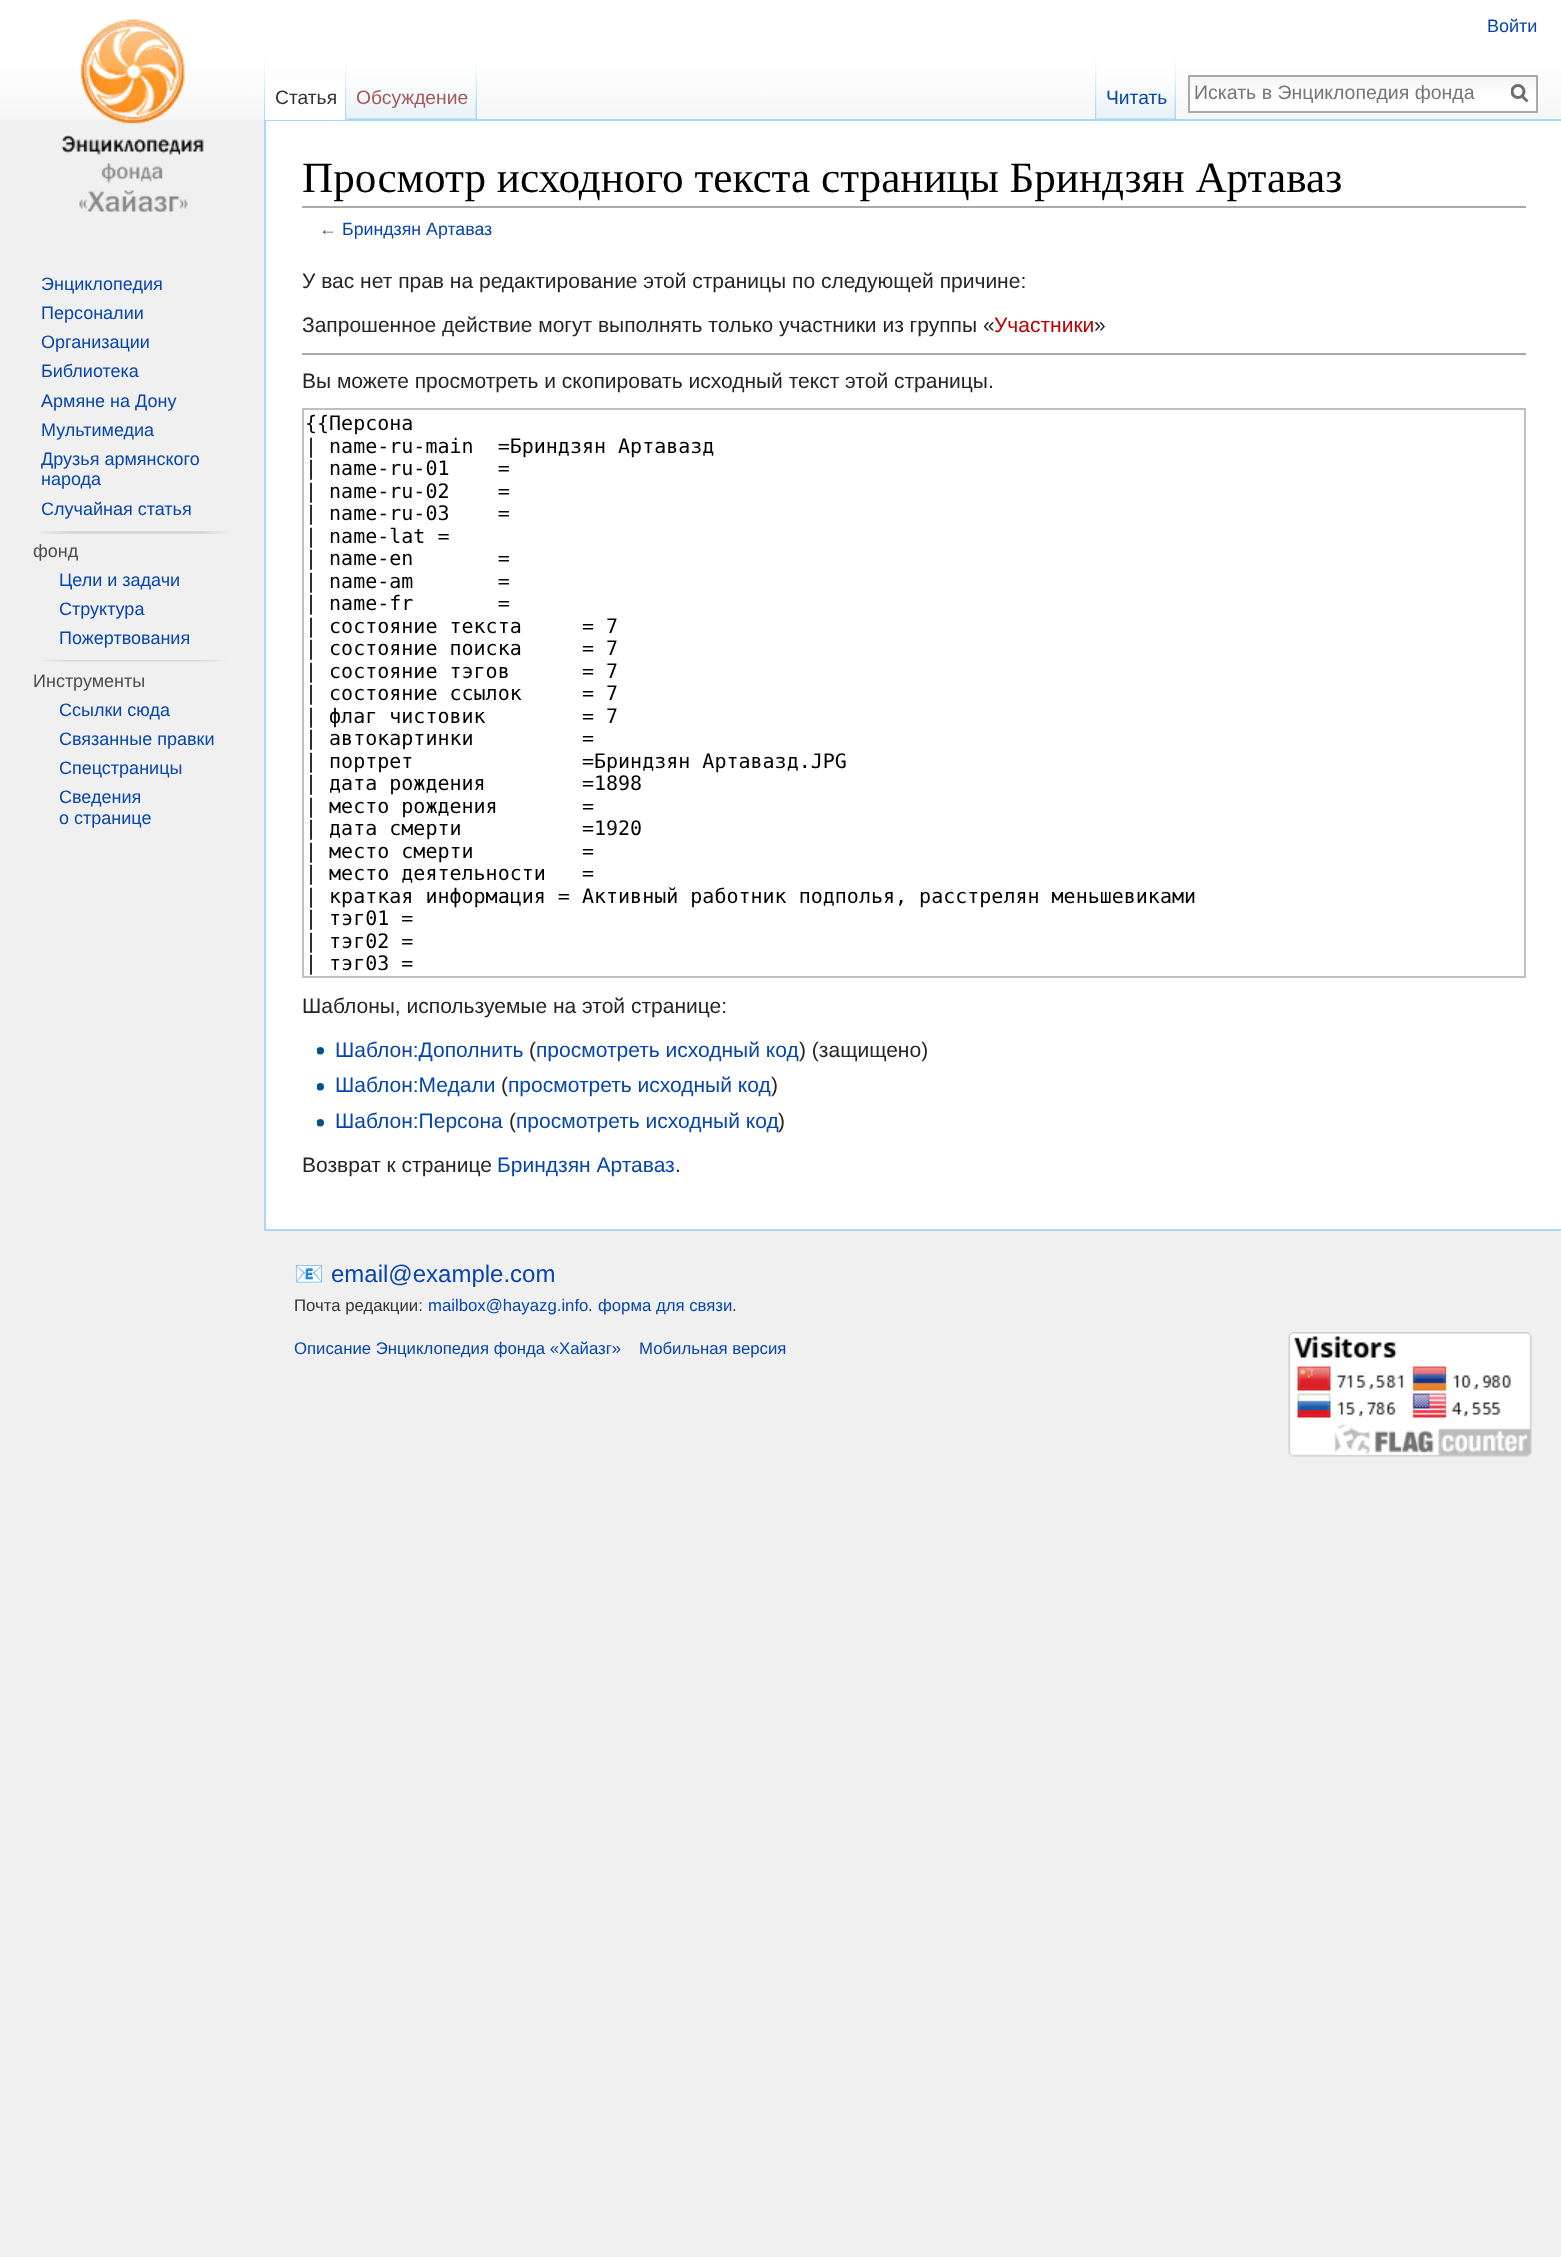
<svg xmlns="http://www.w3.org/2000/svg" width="1561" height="2257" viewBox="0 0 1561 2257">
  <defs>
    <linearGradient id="g1" gradientUnits="userSpaceOnUse" x1="781" y1="0" x2="781" y2="120"><stop offset="0.5" stop-color="rgb(255,255,255)"/><stop offset="1" stop-color="rgb(246,246,246)"/></linearGradient>
    <clipPath id="clip1"><rect x="1511" y="84" width="18" height="20"/></clipPath>
  </defs>
  <rect width="100%" height="100%" fill="rgb(240,240,240)"/>
  <rect x="0" y="0" width="1561" height="120" fill="url(#g1)"/>
  <text x="1487" y="32" font-family="Liberation Sans" font-size="18" fill="rgb(6,69,173)">Войти</text>
  <image x="264" y="60" width="1" height="59" href="pic1.png"/>
  <rect x="264" y="119" width="1297" height="2" fill="rgb(167,215,249)"/>
  <rect x="264" y="1229" width="1297" height="2" fill="rgb(167,215,249)"/>
  <rect x="264" y="119" width="2" height="1111" fill="rgb(167,215,249)"/>
  <rect x="265" y="77" width="82" height="43" fill="rgb(255,255,255)"/>
  <image x="345" y="61" width="2" height="59" href="pic2.png"/>
  <text x="275" y="104" font-family="Liberation Sans" font-size="19.25" fill="rgb(51,51,51)">Статья</text>
  <image x="346" y="60" width="131" height="60" href="pic3.png"/>
  <image x="475" y="61" width="2" height="58" href="pic4.png"/>
  <text x="356" y="104" font-family="Liberation Sans" font-size="19.25" fill="rgb(165,88,88)">Обсуждение</text>
  <image x="1095" y="60" width="2" height="59" href="pic5.png"/>
  <image x="1096" y="60" width="80" height="60" href="pic6.png"/>
  <image x="1174" y="61" width="2" height="58" href="pic4.png"/>
  <text x="1106" y="104" font-family="Liberation Sans" font-size="19.25" fill="rgb(6,69,173)">Читать</text>
  <rect x="1190" y="89" width="346" height="22" fill="rgb(255,255,255)"/>
  <image x="1190" y="77" width="346" height="12" href="pic7.png"/>
  <rect x="1189" y="76" width="348" height="36" fill="none" stroke="rgb(170,170,170)" stroke-width="2"/>
  <text x="1194" y="99" font-family="Liberation Sans" font-size="19.5" fill="rgb(117,117,117)">Искать в Энциклопедия фонда</text>
  <path d="M1527.5 101.5L1521.5 95.5" fill="none" stroke="rgb(108,108,108)" stroke-width="3"/>
  <g clip-path="url(#clip1)">
    <circle cx="1518" cy="91.5" r="6" fill="none" stroke="rgb(108,108,108)" stroke-width="3"/>
  </g>
  <image x="61" y="19" width="143" height="194" href="pic8.png"/>
  <g font-family="Liberation Sans" font-size="18" fill="rgb(6,69,173)">
    <text>
      <tspan x="41" y="290">Энциклопедия</tspan>
      <tspan x="41" y="319">Персоналии</tspan>
      <tspan x="41" y="348">Организации</tspan>
      <tspan x="41" y="377">Библиотека</tspan>
      <tspan x="41" y="407">Армяне на Дону</tspan>
      <tspan x="41" y="436">Мультимедиа</tspan>
      <tspan x="41" y="465">Друзья армянского</tspan>
      <tspan x="41" y="485">народа</tspan>
      <tspan x="41" y="515">Случайная статья</tspan>
    </text>
  </g>
  <image x="41" y="531" width="186" height="3" href="pic9.png"/>
  <text x="33" y="557" font-family="Liberation Sans" font-size="18" fill="rgb(77,77,77)">фонд</text>
  <g font-family="Liberation Sans" font-size="18" fill="rgb(6,69,173)">
    <text>
      <tspan x="59" y="586">Цели и задачи</tspan>
      <tspan x="59" y="615">Структура</tspan>
      <tspan x="59" y="644">Пожертвования</tspan>
    </text>
  </g>
  <image x="41" y="660" width="186" height="2" href="pic10.png"/>
  <text x="33" y="687" font-family="Liberation Sans" font-size="18" fill="rgb(77,77,77)">Инструменты</text>
  <g font-family="Liberation Sans" font-size="18" fill="rgb(6,69,173)">
    <text>
      <tspan x="59" y="716">Ссылки сюда</tspan>
      <tspan x="59" y="745">Связанные правки</tspan>
      <tspan x="59" y="774">Спецстраницы</tspan>
      <tspan x="59" y="803">Сведения</tspan>
      <tspan x="59" y="824">о странице</tspan>
    </text>
  </g>
  <rect x="266" y="121" width="1295" height="1108" fill="rgb(255,255,255)"/>
  <rect x="302" y="206" width="1224" height="2" fill="rgb(170,170,170)"/>
  <text x="302" y="192" font-family="Liberation Serif" font-size="43.2" fill="rgb(0,0,0)">Просмотр исходного текста страницы Бриндзян Артаваз</text>
  <text x="319" y="235" font-family="Liberation Sans" font-size="17.75" fill="rgb(84,84,84)">←</text>
  <text x="342" y="235" font-family="Liberation Sans" font-size="17.75" fill="rgb(6,69,173)">Бриндзян Артаваз</text>
  <g font-family="Liberation Sans" font-size="21" fill="rgb(37,37,37)">
    <text x="302" y="288">У вас нет прав на редактирование этой страницы по следующей причине:</text>
    <text x="302" y="332">Запрошенное действие могут выполнять только участники из группы «</text>
  </g>
  <text x="994" y="332" font-family="Liberation Sans" font-size="21" fill="rgb(186,0,0)">Участники</text>
  <text x="1094" y="332" font-family="Liberation Sans" font-size="21" fill="rgb(37,37,37)">»</text>
  <rect x="302" y="353" width="1224" height="2" fill="rgb(170,170,170)"/>
  <text x="302" y="388" font-family="Liberation Sans" font-size="21" fill="rgb(37,37,37)">Вы можете просмотреть и скопировать исходный текст этой страницы.</text>
  <rect x="303" y="409" width="1222" height="568" fill="none" stroke="rgb(192,192,192)" stroke-width="2"/>
  <g font-family="DejaVu Sans Mono" font-size="20" fill="rgb(0,0,0)">
    <text xml:space="preserve"><tspan x="305" y="430">{{Персона</tspan><tspan x="305" y="453">| name-ru-main  =Бриндзян Артавазд</tspan><tspan x="305" y="475">| name-ru-01    =</tspan><tspan x="305" y="498">| name-ru-02    =</tspan><tspan x="305" y="520">| name-ru-03    =</tspan><tspan x="305" y="543">| name-lat =</tspan><tspan x="305" y="565">| name-en       =</tspan><tspan x="305" y="588">| name-am       =</tspan><tspan x="305" y="610">| name-fr       =</tspan><tspan x="305" y="633">| состояние текста     = 7</tspan><tspan x="305" y="655">| состояние поиска     = 7</tspan><tspan x="305" y="678">| состояние тэгов      = 7</tspan><tspan x="305" y="700">| состояние ссылок     = 7</tspan><tspan x="305" y="723">| флаг чистовик        = 7</tspan><tspan x="305" y="745">| автокартинки         =</tspan><tspan x="305" y="768">| портрет              =Бриндзян Артавазд.JPG</tspan><tspan x="305" y="790">| дата рождения        =1898</tspan><tspan x="305" y="813">| место рождения       =</tspan><tspan x="305" y="835">| дата смерти          =1920</tspan><tspan x="305" y="858">| место смерти         =</tspan><tspan x="305" y="880">| место деятельности   =</tspan><tspan x="305" y="903">| краткая информация = Активный работник подполья, расстрелян меньшевиками</tspan><tspan x="305" y="925">| тэг01 =</tspan><tspan x="305" y="948">| тэг02 =</tspan><tspan x="305" y="970">| тэг03 =</tspan></text>
  </g>
  <text x="302" y="1013" font-family="Liberation Sans" font-size="21" fill="rgb(37,37,37)">Шаблоны, используемые на этой странице:</text>
  <image x="317" y="1047" width="7" height="8" href="pic11.png"/>
  <text x="335" y="1057" font-family="Liberation Sans" font-size="21" fill="rgb(6,69,173)">Шаблон:Дополнить</text>
  <text x="529" y="1057" font-family="Liberation Sans" font-size="21" fill="rgb(37,37,37)">(</text>
  <text x="536" y="1057" font-family="Liberation Sans" font-size="21" fill="rgb(6,69,173)">просмотреть исходный код</text>
  <text x="799" y="1057" font-family="Liberation Sans" font-size="21" fill="rgb(37,37,37)">) (защищено)</text>
  <image x="317" y="1083" width="7" height="8" href="pic11.png"/>
  <text x="335" y="1092" font-family="Liberation Sans" font-size="21" fill="rgb(6,69,173)">Шаблон:Медали</text>
  <text x="501" y="1092" font-family="Liberation Sans" font-size="21" fill="rgb(37,37,37)">(</text>
  <text x="508" y="1092" font-family="Liberation Sans" font-size="21" fill="rgb(6,69,173)">просмотреть исходный код</text>
  <text x="771" y="1092" font-family="Liberation Sans" font-size="21" fill="rgb(37,37,37)">)</text>
  <image x="317" y="1119" width="7" height="8" href="pic11.png"/>
  <text x="335" y="1128" font-family="Liberation Sans" font-size="21" fill="rgb(6,69,173)">Шаблон:Персона</text>
  <text x="509" y="1128" font-family="Liberation Sans" font-size="21" fill="rgb(37,37,37)">(</text>
  <text x="516" y="1128" font-family="Liberation Sans" font-size="21" fill="rgb(6,69,173)">просмотреть исходный код</text>
  <g font-family="Liberation Sans" font-size="21" fill="rgb(37,37,37)">
    <text x="778" y="1128">)</text>
    <text x="302" y="1172">Возврат к странице</text>
  </g>
  <text x="497" y="1172" font-family="Liberation Sans" font-size="21" fill="rgb(6,69,173)">Бриндзян Артаваз</text>
  <text x="675" y="1172" font-family="Liberation Sans" font-size="21" fill="rgb(37,37,37)">.</text>
  <text x="294" y="1282" font-family="Noto Color Emoji" font-size="24" fill="rgb(6,69,173)">📧</text>
  <text x="331" y="1282" font-family="Liberation Sans" font-size="24" fill="rgb(6,69,173)">email@example.com</text>
  <text x="294" y="1311" font-family="Liberation Sans" font-size="16.75" fill="rgb(51,51,51)">Почта редакции:</text>
  <text x="428" y="1311" font-family="Liberation Sans" font-size="16.75" fill="rgb(6,69,173)">mailbox@hayazg.info</text>
  <text x="588" y="1311" font-family="Liberation Sans" font-size="16.75" fill="rgb(51,51,51)">.</text>
  <text x="598" y="1311" font-family="Liberation Sans" font-size="16.75" fill="rgb(6,69,173)">форма для связи</text>
  <text x="732" y="1311" font-family="Liberation Sans" font-size="16.75" fill="rgb(51,51,51)">.</text>
  <g font-family="Liberation Sans" font-size="16.75" fill="rgb(6,69,173)">
    <text x="294" y="1354">Описание Энциклопедия фонда «Хайазг»</text>
    <text x="639" y="1354">Мобильная версия</text>
  </g>
  <image x="1288" y="1332" width="244" height="125" href="pic12.png"/>
</svg>
